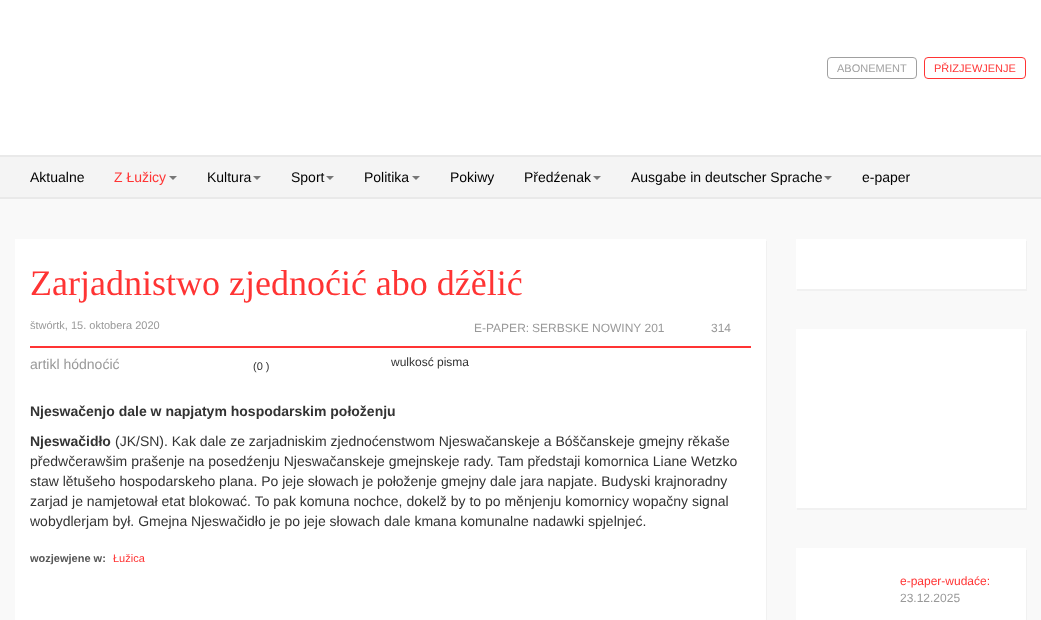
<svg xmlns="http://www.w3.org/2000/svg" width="1041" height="620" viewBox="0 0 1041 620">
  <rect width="100%" height="100%" fill="rgb(249,249,249)"/>
  <rect x="0" y="0" width="1041" height="155" fill="rgb(255,255,255)"/>
  <rect x="827.5" y="57.5" width="89" height="21" rx="3.5" fill="none" stroke="rgb(160,160,160)"/>
  <text x="837" y="72" font-family="Liberation Sans" font-size="11" fill="rgb(160,160,160)">ABONEMENT</text>
  <rect x="924.5" y="57.5" width="101" height="21" rx="3.5" fill="none" stroke="rgb(255,52,52)"/>
  <text x="934" y="72" font-family="Liberation Sans" font-size="11" fill="rgb(255,52,52)">PŘIZJEWJENJE</text>
  <rect x="0" y="157" width="1041" height="40" fill="rgb(244,244,244)"/>
  <rect x="0" y="155" width="1041" height="2" fill="rgb(233,233,233)"/>
  <rect x="0" y="197" width="1041" height="2" fill="rgb(233,233,233)"/>
  <text x="30" y="182" font-family="Liberation Sans" font-size="14" fill="rgb(0,0,0)">Aktualne</text>
  <text x="114" y="182" font-family="Liberation Sans" font-size="14" fill="rgb(255,52,52)">Z Łužicy</text>
  <path d="M169 176H177L173 180Z" fill="rgb(119,119,119)"/>
  <text x="207" y="182" font-family="Liberation Sans" font-size="14" fill="rgb(0,0,0)">Kultura</text>
  <path d="M253 176H261L257 180Z" fill="rgb(119,119,119)"/>
  <text x="291" y="182" font-family="Liberation Sans" font-size="14" fill="rgb(0,0,0)">Sport</text>
  <path d="M326 176H334L330 180Z" fill="rgb(119,119,119)"/>
  <text x="364" y="182" font-family="Liberation Sans" font-size="14" fill="rgb(0,0,0)">Politika</text>
  <path d="M412 176H420L416 180Z" fill="rgb(119,119,119)"/>
  <g font-family="Liberation Sans" font-size="14" fill="rgb(0,0,0)">
    <text x="450" y="182">Pokiwy</text>
    <text x="524" y="182">Předźenak</text>
  </g>
  <path d="M593 176H601L597 180Z" fill="rgb(119,119,119)"/>
  <text x="631" y="182" font-family="Liberation Sans" font-size="14" fill="rgb(0,0,0)">Ausgabe in deutscher Sprache</text>
  <path d="M824 176H832L828 180Z" fill="rgb(119,119,119)"/>
  <text x="862" y="182" font-family="Liberation Sans" font-size="14" fill="rgb(0,0,0)">e-paper</text>
  <path d="M16 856V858H767V241H766V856Z" fill="rgb(241,241,241)"/>
  <rect x="15" y="239" width="751" height="381" fill="rgb(255,255,255)"/>
  <text x="30" y="295" font-family="Liberation Serif" font-size="36" fill="rgb(255,52,52)">Zarjadnistwo zjednoćić abo dźělić</text>
  <text x="30" y="329" font-family="Liberation Sans" font-size="11" fill="rgb(153,153,153)">štwórtk, 15. oktobera 2020</text>
  <g font-family="Liberation Sans" font-size="12" fill="rgb(153,153,153)">
    <text x="474" y="332">E-PAPER:</text>
    <text x="532" y="332">SERBSKE NOWINY 201</text>
    <text x="711" y="332">314</text>
  </g>
  <rect x="30" y="346" width="721" height="2" fill="rgb(255,52,52)"/>
  <text x="30" y="369" font-family="Liberation Sans" font-size="14" fill="rgb(153,153,153)">artikl hódnoćić</text>
  <text x="253" y="370" font-family="Liberation Sans" font-size="11" fill="rgb(51,51,51)">(0 )</text>
  <text x="391" y="366" font-family="Liberation Sans" font-size="12" fill="rgb(51,51,51)">wulkosć pisma</text>
  <g font-family="Liberation Sans" font-size="14" font-weight="bold" fill="rgb(51,51,51)">
    <text x="30" y="416">Njeswačenjo dale w napjatym hospodarskim połoženju</text>
    <text x="30" y="446">Njeswačidło</text>
  </g>
  <g font-family="Liberation Sans" font-size="14" fill="rgb(51,51,51)">
    <text x="115" y="446">(JK/SN). Kak dale ze zarjadniskim zjednoćenstwom Njeswačanskeje a Bóščanskeje gmejny rěkaše</text>
    <text>
      <tspan x="30" y="466">předwčerawšim prašenje na posedźenju Njeswačanskeje gmejnskeje rady. Tam předstaji komornica Liane Wetzko</tspan>
      <tspan x="30" y="486">staw lětušeho hospodarskeho plana. Po jeje słowach je połoženje gmejny dale jara napjate. Budyski krajnoradny</tspan>
      <tspan x="30" y="506">zarjad je namjetował etat blokować. To pak komuna nochce, dokelž by to po měnjenju komornicy wopačny signal</tspan>
      <tspan x="30" y="526">wobydlerjam był. Gmejna Njeswačidło je po jeje słowach dale kmana komunalne nadawki spjelnjeć.</tspan>
    </text>
  </g>
  <text x="30" y="562" font-family="Liberation Sans" font-size="11" font-weight="bold" fill="rgb(85,85,85)">wozjewjene w:</text>
  <text x="113" y="562" font-family="Liberation Sans" font-size="11" fill="rgb(255,52,52)">Łužica</text>
  <path d="M797 289V291H1027V241H1026V289Z" fill="rgb(241,241,241)"/>
  <rect x="796" y="239" width="230" height="50" fill="rgb(255,255,255)"/>
  <path d="M797 508V510H1027V331H1026V508Z" fill="rgb(241,241,241)"/>
  <rect x="796" y="329" width="230" height="179" fill="rgb(255,255,255)"/>
  <path d="M797 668V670H1027V550H1026V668Z" fill="rgb(241,241,241)"/>
  <rect x="796" y="548" width="230" height="72" fill="rgb(255,255,255)"/>
  <text x="900" y="585" font-family="Liberation Sans" font-size="12" fill="rgb(255,52,52)">e-paper-wudaće:</text>
  <text x="900" y="602" font-family="Liberation Sans" font-size="12" fill="rgb(153,153,153)">23.12.2025</text>
</svg>
